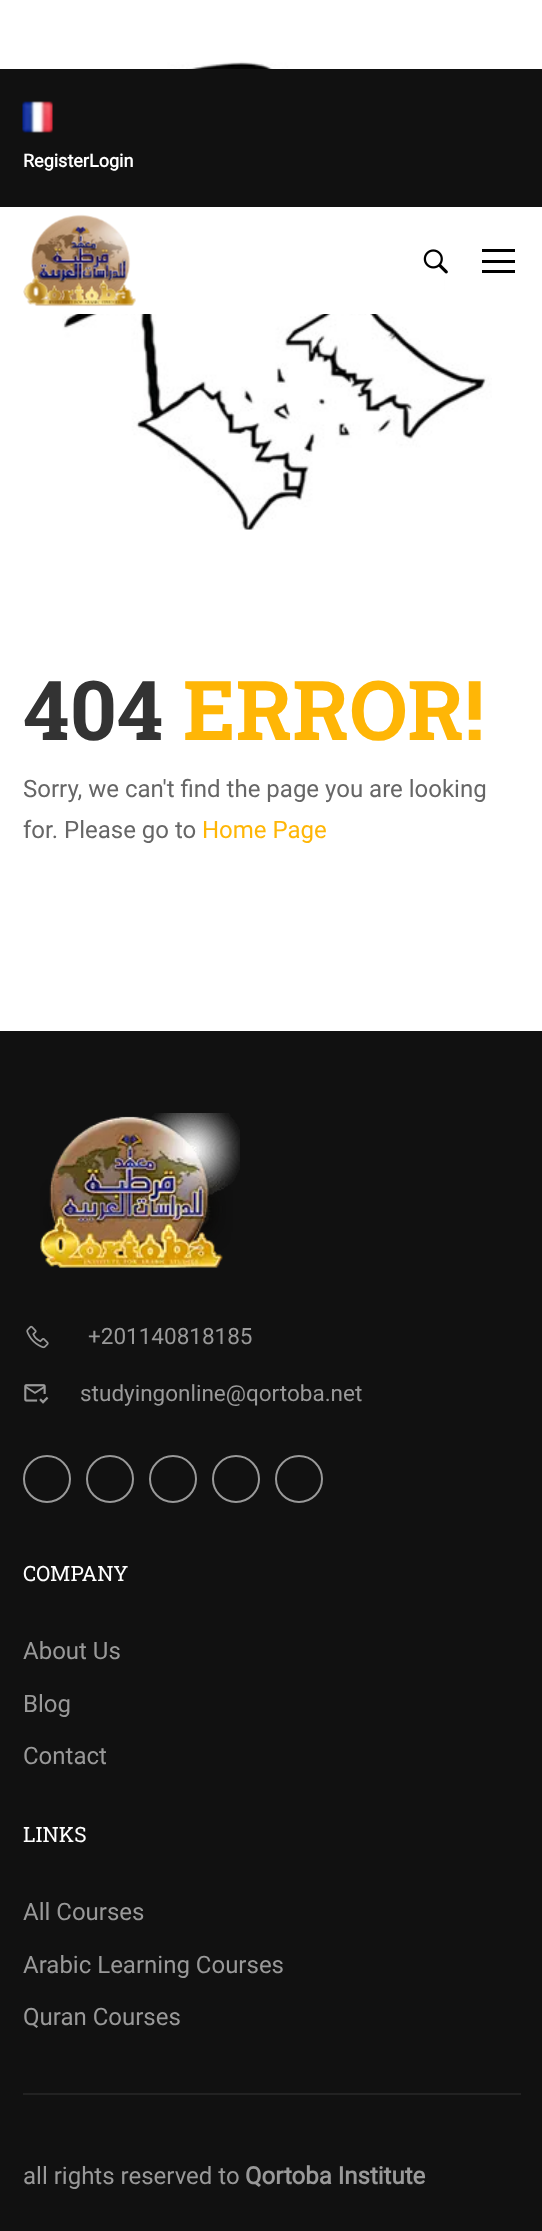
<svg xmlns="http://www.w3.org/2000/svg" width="542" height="2231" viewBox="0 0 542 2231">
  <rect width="100%" height="100%" fill="rgb(255,255,255)"/>
  <image x="62" y="61" width="430" height="469" href="pic4.png"/>
  <rect x="72" y="207" width="372" height="107" fill="rgb(255,255,255)"/>
  <rect x="0" y="69" width="542" height="138" fill="rgb(17,17,17)"/>
  <image x="22" y="101" width="31" height="32" href="pic1.png"/>
  <text x="23" y="167" font-family="Roboto" font-size="18" font-weight="bold" fill="rgb(255,255,255)">RegisterLogin</text>
  <image x="23" y="214" width="113" height="93" href="pic2.png"/>
  <image x="423" y="249" width="25" height="25" href="pic3.png"/>
  <rect x="482" y="249" width="33" height="3" fill="rgb(0,0,0)"/>
  <rect x="482" y="260" width="33" height="3" fill="rgb(0,0,0)"/>
  <rect x="482" y="270" width="33" height="3" fill="rgb(0,0,0)"/>
  <text x="23" y="740" font-family="Roboto Slab" font-size="82.5" font-weight="bold" fill="rgb(51,51,51)">404</text>
  <text x="183" y="740" font-family="Roboto Slab" font-size="82.5" font-weight="bold" fill="rgb(255,182,6)">ERROR!</text>
  <g font-family="Roboto" font-size="24" fill="rgb(102,102,102)">
    <text>
      <tspan x="23" y="797">Sorry, we can't find the page you are looking</tspan>
      <tspan x="23" y="838">for. Please go to</tspan>
    </text>
  </g>
  <text x="202" y="838" font-family="Roboto" font-size="24" fill="rgb(255,182,6)">Home Page</text>
  <rect x="0" y="1031" width="542" height="1200" fill="rgb(17,17,17)"/>
  <image x="40" y="1113" width="200" height="155" href="pic5.png"/>
  <image x="26" y="1325" width="23" height="24" href="pic6.png"/>
  <text x="88" y="1344" font-family="Roboto" font-size="22.5" fill="rgb(153,153,153)">+201140818185</text>
  <image x="24" y="1384" width="25" height="20" href="pic7.png"/>
  <text x="80" y="1401" font-family="Roboto" font-size="22.5" fill="rgb(153,153,153)">studyingonline@qortoba.net</text>
  <circle cx="47" cy="1479" r="23" fill="none" stroke="rgb(153,153,153)" stroke-width="2"/>
  <circle cx="110" cy="1479" r="23" fill="none" stroke="rgb(153,153,153)" stroke-width="2"/>
  <circle cx="173" cy="1479" r="23" fill="none" stroke="rgb(153,153,153)" stroke-width="2"/>
  <circle cx="236" cy="1479" r="23" fill="none" stroke="rgb(153,153,153)" stroke-width="2"/>
  <circle cx="299" cy="1479" r="23" fill="none" stroke="rgb(153,153,153)" stroke-width="2"/>
  <text x="23" y="1581" font-family="Roboto Slab" font-size="21" fill="rgb(255,255,255)">COMPANY</text>
  <g font-family="Roboto" font-size="24" fill="rgb(153,153,153)">
    <text x="23" y="1659">About Us</text>
    <text x="23" y="1712">Blog</text>
    <text x="23" y="1764">Contact</text>
  </g>
  <text x="23" y="1842" font-family="Roboto Slab" font-size="21" fill="rgb(255,255,255)">LINKS</text>
  <g font-family="Roboto" font-size="24" fill="rgb(153,153,153)">
    <text x="23" y="1920">All Courses</text>
    <text x="23" y="1973">Arabic Learning Courses</text>
    <text x="23" y="2025">Quran Courses</text>
  </g>
  <rect x="23" y="2093" width="498" height="2" fill="rgb(34,34,34)"/>
  <text x="23" y="2184" font-family="Roboto" font-size="24" fill="rgb(153,153,153)">all rights reserved to</text>
  <text x="245" y="2184" font-family="Roboto" font-size="24" font-weight="bold" fill="rgb(153,153,153)">Qortoba Institute</text>
</svg>
